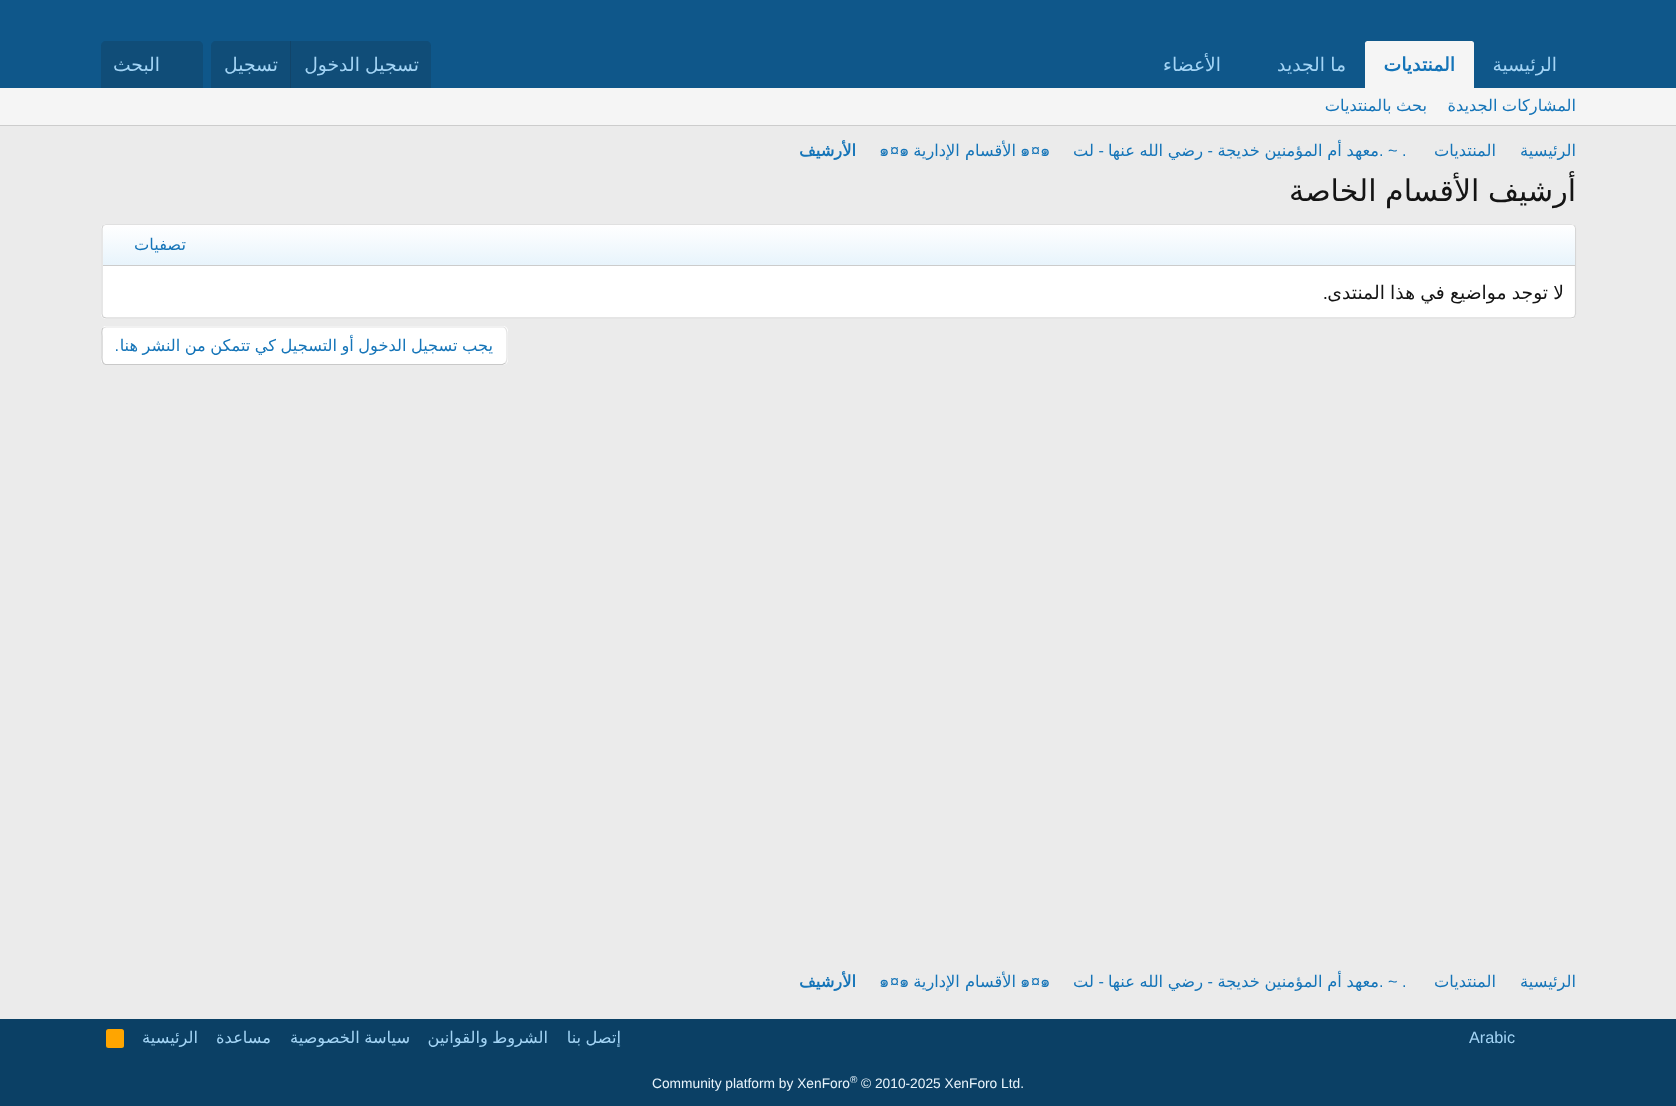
<svg xmlns="http://www.w3.org/2000/svg" width="1676" height="1106" viewBox="0 0 1676 1106">
  <defs>
    <linearGradient id="g1" gradientUnits="userSpaceOnUse" x1="839" y1="265" x2="839" y2="225"><stop offset="0" stop-color="rgb(232,244,252)"/><stop offset="1" stop-color="rgb(255,255,255)"/></linearGradient>
  </defs>
  <rect width="100%" height="100%" fill="rgb(235,235,235)"/>
  <rect x="0" y="0" width="1676" height="88" fill="rgb(15,87,138)"/>
  <text x="1557" y="71" font-family="DejaVu Sans" font-size="18.75" direction="rtl" fill="rgb(163,212,245)">الرئيسية</text>
  <path d="M1367.5 41H1471.5C1473 41 1474 42 1474 43.5V88H1365V43.5C1365 42 1366 41 1367.5 41Z" fill="rgb(245,245,245)"/>
  <text x="1455" y="71" font-family="DejaVu Sans" font-size="18.75" font-weight="bold" direction="rtl" fill="rgb(20,116,184)">المنتديات</text>
  <g font-family="DejaVu Sans" font-size="18.75" direction="rtl" fill="rgb(163,212,245)">
    <text x="1346" y="71" word-spacing="-0.75">ما الجديد</text>
    <text x="1221" y="71">الأعضاء</text>
  </g>
  <path d="M216 41H426C429 41 431 43 431 46V88H211V46C211 43 213 41 216 41Z" fill="rgb(16,77,120)"/>
  <text x="419" y="71" word-spacing="-0.75" font-family="DejaVu Sans" font-size="18.75" direction="rtl" fill="rgb(163,212,245)">تسجيل الدخول</text>
  <rect x="290" y="41" width="1" height="47" fill="rgb(17,68,105)"/>
  <text x="278" y="71" font-family="DejaVu Sans" font-size="18.75" direction="rtl" fill="rgb(163,212,245)">تسجيل</text>
  <path d="M106 41H198C201 41 203 43 203 46V88H101V46C101 43 103 41 106 41Z" fill="rgb(16,77,120)"/>
  <text x="160" y="71" font-family="DejaVu Sans" font-size="18.75" direction="rtl" fill="rgb(163,212,245)">البحث</text>
  <rect x="0" y="88" width="1676" height="37" fill="rgb(245,245,245)"/>
  <rect x="0" y="125" width="1676" height="1" fill="rgb(204,204,204)"/>
  <g font-family="DejaVu Sans" font-size="16.25" direction="rtl" fill="rgb(20,116,184)">
    <text x="1576" y="111" word-spacing="-0.75">المشاركات الجديدة</text>
    <text x="1427" y="111" word-spacing="-0.75">بحث بالمنتديات</text>
    <text x="1576" y="156">الرئيسية</text>
    <text x="1496" y="156">المنتديات</text>
  </g>
  <text x="1379" y="156" font-family="Liberation Sans" font-size="16.25" fill="rgb(20,116,184)">. ~ .</text>
  <text x="1379" y="156" word-spacing="-0.5" font-family="DejaVu Sans" font-size="16.25" direction="rtl" fill="rgb(20,116,184)">معهد أم المؤمنين خديجة</text>
  <text x="1213" y="156" font-family="Liberation Sans" font-size="16.25" direction="rtl" fill="rgb(20,116,184)">-</text>
  <text x="1203" y="156" word-spacing="-0.5" font-family="DejaVu Sans" font-size="16.25" direction="rtl" fill="rgb(20,116,184)">رضي الله عنها</text>
  <text x="1104" y="156" font-family="Liberation Sans" font-size="16.25" direction="rtl" fill="rgb(20,116,184)">-</text>
  <text x="1094" y="156" font-family="DejaVu Sans" font-size="16.25" direction="rtl" fill="rgb(20,116,184)">لت</text>
  <text x="1040" y="156" font-family="Loma" font-size="16.25" fill="rgb(20,116,184)">๑</text>
  <text x="1031" y="156" font-family="Liberation Sans" font-size="16.25" fill="rgb(20,116,184)">¤</text>
  <text x="1020" y="156" font-family="Loma" font-size="16.25" fill="rgb(20,116,184)">๑</text>
  <text x="1016" y="156" font-family="DejaVu Sans" font-size="16.25" direction="rtl" fill="rgb(20,116,184)">الأقسام الإدارية</text>
  <text x="899" y="156" font-family="Loma" font-size="16.25" fill="rgb(20,116,184)">๑</text>
  <text x="890" y="156" font-family="Liberation Sans" font-size="16.25" fill="rgb(20,116,184)">¤</text>
  <text x="879" y="156" font-family="Loma" font-size="16.25" fill="rgb(20,116,184)">๑</text>
  <text x="856" y="156" font-family="DejaVu Sans" font-size="16.25" font-weight="bold" direction="rtl" fill="rgb(20,116,184)">الأرشيف</text>
  <text x="1576" y="201" word-spacing="-1" font-family="DejaVu Sans" font-size="30" direction="rtl" fill="rgb(20,20,20)">أرشيف الأقسام الخاصة</text>
  <rect x="101" y="224" width="1475" height="95" rx="5" fill="rgb(255,255,255)"/>
  <path d="M103 225.5L106 224.5H1571L1574.5 225.5" fill="none" stroke="rgb(224,224,224)" stroke-width="1.2"/>
  <path d="M1574.5 225.5L1575.5 228.5V314L1574.5 317" fill="none" stroke="rgb(214,214,214)" stroke-width="1.2"/>
  <path d="M1574.5 317L1571 318H106L103 317" fill="none" stroke="rgb(204,204,204)" stroke-width="1.2"/>
  <path d="M103 317L102 314V228.5L103 225.5" fill="none" stroke="rgb(214,214,214)" stroke-width="1.2"/>
  <path d="M107 225H1571C1573 225 1575 227 1575 229V265H103V229C103 227 105 225 107 225Z" fill="url(#g1)"/>
  <rect x="103" y="265" width="1472" height="1" fill="rgb(204,204,204)"/>
  <text x="186" y="250" font-family="DejaVu Sans" font-size="16.25" direction="rtl" fill="rgb(20,116,184)">تصفيات</text>
  <text x="1564" y="299" word-spacing="-0.75" font-family="DejaVu Sans" font-size="18.75" direction="rtl" fill="rgb(20,20,20)">لا توجد مواضيع في هذا المنتدى</text>
  <text x="1328" y="299" font-family="Liberation Sans" font-size="18.75" direction="rtl" fill="rgb(20,20,20)">.</text>
  <rect x="101" y="326" width="407" height="39" rx="5" fill="rgb(255,255,255)"/>
  <path d="M103 328L106 327H503.5C507.5 328 507 333 507 336V355C507 357.5 507.5 361 505.5 363" fill="none" stroke="rgb(227,227,227)" stroke-width="1.2"/>
  <path d="M505.5 363L502.5 364.5H105.5C101 363.5 102 358.5 102 355V336C102 333.5 101 330 103 328" fill="none" stroke="rgb(201,201,201)" stroke-width="1.2"/>
  <text x="493" y="351" word-spacing="-0.75" font-family="DejaVu Sans" font-size="16.25" direction="rtl" fill="rgb(20,116,184)">يجب تسجيل الدخول أو التسجيل كي تتمكن من النشر هنا</text>
  <text x="119" y="351" font-family="Liberation Sans" font-size="16.25" direction="rtl" fill="rgb(20,116,184)">.</text>
  <g font-family="DejaVu Sans" font-size="16.25" direction="rtl" fill="rgb(20,116,184)">
    <text x="1576" y="987">الرئيسية</text>
    <text x="1496" y="987">المنتديات</text>
  </g>
  <text x="1379" y="987" font-family="Liberation Sans" font-size="16.25" fill="rgb(20,116,184)">. ~ .</text>
  <text x="1379" y="987" word-spacing="-0.5" font-family="DejaVu Sans" font-size="16.25" direction="rtl" fill="rgb(20,116,184)">معهد أم المؤمنين خديجة</text>
  <text x="1213" y="987" font-family="Liberation Sans" font-size="16.25" direction="rtl" fill="rgb(20,116,184)">-</text>
  <text x="1203" y="987" word-spacing="-0.5" font-family="DejaVu Sans" font-size="16.25" direction="rtl" fill="rgb(20,116,184)">رضي الله عنها</text>
  <text x="1104" y="987" font-family="Liberation Sans" font-size="16.25" direction="rtl" fill="rgb(20,116,184)">-</text>
  <text x="1094" y="987" font-family="DejaVu Sans" font-size="16.25" direction="rtl" fill="rgb(20,116,184)">لت</text>
  <text x="1040" y="987" font-family="Loma" font-size="16.25" fill="rgb(20,116,184)">๑</text>
  <text x="1031" y="987" font-family="Liberation Sans" font-size="16.25" fill="rgb(20,116,184)">¤</text>
  <text x="1020" y="987" font-family="Loma" font-size="16.25" fill="rgb(20,116,184)">๑</text>
  <text x="1016" y="987" font-family="DejaVu Sans" font-size="16.25" direction="rtl" fill="rgb(20,116,184)">الأقسام الإدارية</text>
  <text x="899" y="987" font-family="Loma" font-size="16.25" fill="rgb(20,116,184)">๑</text>
  <text x="890" y="987" font-family="Liberation Sans" font-size="16.25" fill="rgb(20,116,184)">¤</text>
  <text x="879" y="987" font-family="Loma" font-size="16.25" fill="rgb(20,116,184)">๑</text>
  <text x="856" y="987" font-family="DejaVu Sans" font-size="16.25" font-weight="bold" direction="rtl" fill="rgb(20,116,184)">الأرشيف</text>
  <rect x="0" y="1019" width="1676" height="87" fill="rgb(11,64,101)"/>
  <text x="1469" y="1043" font-family="Liberation Sans" font-size="16.25" fill="rgb(163,212,245)">Arabic</text>
  <g font-family="DejaVu Sans" font-size="16.25" direction="rtl" fill="rgb(163,212,245)">
    <text x="621" y="1043" word-spacing="-0.75">إتصل بنا</text>
    <text x="548" y="1043" word-spacing="-0.75">الشروط والقوانين</text>
    <text x="410" y="1043" word-spacing="-0.75">سياسة الخصوصية</text>
    <text x="271" y="1043">مساعدة</text>
    <text x="198" y="1043">الرئيسية</text>
  </g>
  <rect x="106" y="1029" width="18" height="19" rx="2.5" fill="rgb(255,165,0)"/>
  <text x="861" y="1088" font-family="Liberation Sans" font-size="13.75" fill="rgb(232,244,252)">© 2010-2025 XenForo Ltd.</text>
  <text x="850" y="1083" font-family="Liberation Sans" font-size="10" fill="rgb(232,244,252)">®</text>
  <text x="652" y="1088" font-family="Liberation Sans" font-size="13.75" fill="rgb(232,244,252)">Community platform by XenForo</text>
</svg>
